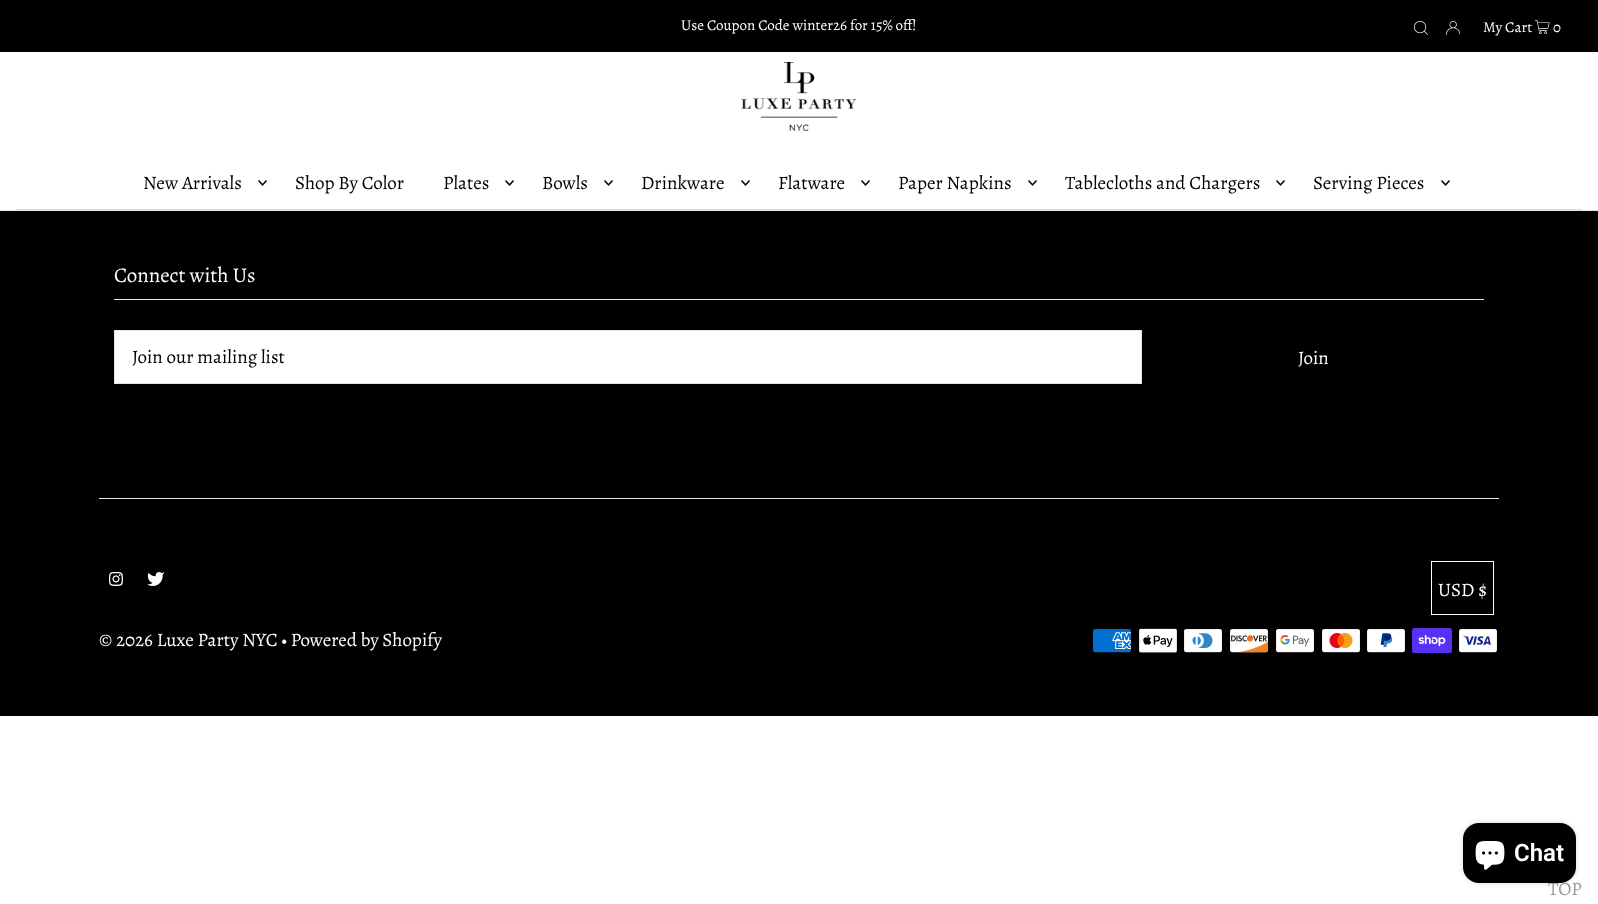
<svg xmlns="http://www.w3.org/2000/svg" width="1598" height="904" viewBox="0 0 1598 904">
  <rect width="100%" height="100%" fill="rgb(255,255,255)"/>
  <rect x="0" y="0" width="1598" height="52" fill="rgb(0,0,0)"/>
  <text x="681" y="30" font-family="Alegreya" font-size="15" fill="rgb(255,255,255)">Use Coupon Code winter26 for 15% off!</text>
  <image x="1414" y="21" width="14" height="14" href="pic1.png"/>
  <image x="1446" y="21" width="14" height="14" href="pic2.png"/>
  <text x="1483" y="32" font-family="Alegreya" font-size="15" fill="rgb(255,255,255)">My Cart</text>
  <image x="1535" y="20" width="15" height="14" href="pic3.png"/>
  <text x="1553" y="32" font-family="Alegreya" font-size="15" fill="rgb(255,255,255)">0</text>
  <rect x="16" y="209" width="1566" height="1" fill="rgb(219,219,219)"/>
  <image x="741" y="62" width="115" height="69" href="pic4.png"/>
  <text x="143" y="189" font-family="Alegreya" font-size="19" fill="rgb(0,0,0)">New Arrivals</text>
  <image x="258" y="180" width="9" height="6" href="pic5.png"/>
  <g font-family="Alegreya" font-size="19" fill="rgb(0,0,0)">
    <text x="295" y="189">Shop By Color</text>
    <text x="443" y="189">Plates</text>
  </g>
  <image x="505" y="180" width="9" height="6" href="pic5.png"/>
  <text x="542" y="189" font-family="Alegreya" font-size="19" fill="rgb(0,0,0)">Bowls</text>
  <image x="604" y="180" width="9" height="6" href="pic5.png"/>
  <text x="641" y="189" font-family="Alegreya" font-size="19" fill="rgb(0,0,0)">Drinkware</text>
  <image x="741" y="180" width="9" height="6" href="pic5.png"/>
  <text x="778" y="189" font-family="Alegreya" font-size="19" fill="rgb(0,0,0)">Flatware</text>
  <image x="861" y="180" width="9" height="6" href="pic5.png"/>
  <text x="898" y="189" font-family="Alegreya" font-size="19" fill="rgb(0,0,0)">Paper Napkins</text>
  <image x="1028" y="180" width="9" height="6" href="pic5.png"/>
  <text x="1065" y="189" font-family="Alegreya" font-size="19" fill="rgb(0,0,0)">Tablecloths and Chargers</text>
  <image x="1276" y="180" width="9" height="6" href="pic5.png"/>
  <text x="1313" y="189" font-family="Alegreya" font-size="19" fill="rgb(0,0,0)">Serving Pieces</text>
  <image x="1441" y="180" width="9" height="6" href="pic5.png"/>
  <rect x="0" y="211" width="1598" height="505" fill="rgb(0,0,0)"/>
  <rect x="0" y="210" width="1598" height="1" fill="rgb(229,229,229)"/>
  <rect x="114" y="299" width="1370" height="1" fill="rgb(229,229,229)"/>
  <text x="114" y="282" font-family="Alegreya" font-size="21" fill="rgb(255,255,255)">Connect with Us</text>
  <rect x="114.5" y="330.5" width="1027" height="53" fill="rgb(255,255,255)" stroke="rgb(229,229,229)"/>
  <text x="132" y="363" font-family="Alegreya" font-size="19" fill="rgb(0,0,0)">Join our mailing list</text>
  <text x="1298" y="364" font-family="Alegreya" font-size="19" fill="rgb(255,255,255)">Join</text>
  <rect x="99" y="498" width="1400" height="1" fill="rgb(229,229,229)"/>
  <rect x="1431.5" y="561.5" width="62" height="53" fill="none" stroke="rgb(255,255,255)"/>
  <text x="1438" y="596" font-family="Alegreya" font-size="19" fill="rgb(255,255,255)">USD $</text>
  <image x="1093" y="629" width="38" height="24" href="pic6.png"/>
  <image x="1139" y="628" width="38" height="25" href="pic7.png"/>
  <image x="1184" y="629" width="38" height="24" href="pic8.png"/>
  <image x="1230" y="629" width="38" height="24" href="pic9.png"/>
  <image x="1276" y="629" width="38" height="24" href="pic10.png"/>
  <image x="1322" y="629" width="38" height="24" href="pic11.png"/>
  <image x="1367" y="629" width="38" height="24" href="pic12.png"/>
  <image x="1412" y="628" width="40" height="25" href="pic13.png"/>
  <image x="1459" y="629" width="38" height="24" href="pic14.png"/>
  <image x="109" y="572" width="14" height="14" href="pic15.png"/>
  <image x="147" y="572" width="17" height="14" href="pic16.png"/>
  <g font-family="Alegreya" font-size="19" fill="rgb(255,255,255)">
    <text x="99" y="646">© 2026 Luxe Party NYC</text>
    <text x="281" y="646">• Powered by Shopify</text>
  </g>
  <rect x="1463" y="823" width="113" height="60" rx="16" fill="rgba(0,0,0,0.15)" filter="blur(2.5px)"/>
  <text x="1548" y="895" font-family="Alegreya" font-size="19" fill="rgb(153,153,153)">TOP</text>
  <rect x="1463" y="823" width="113" height="60" rx="16" fill="rgb(0,0,0)"/>
  <image x="1475" y="841" width="30" height="29" href="pic17.png"/>
  <text x="1514" y="861" font-family="Roboto" font-size="24" font-weight="600" fill="rgb(255,255,255)">Chat</text>
</svg>
